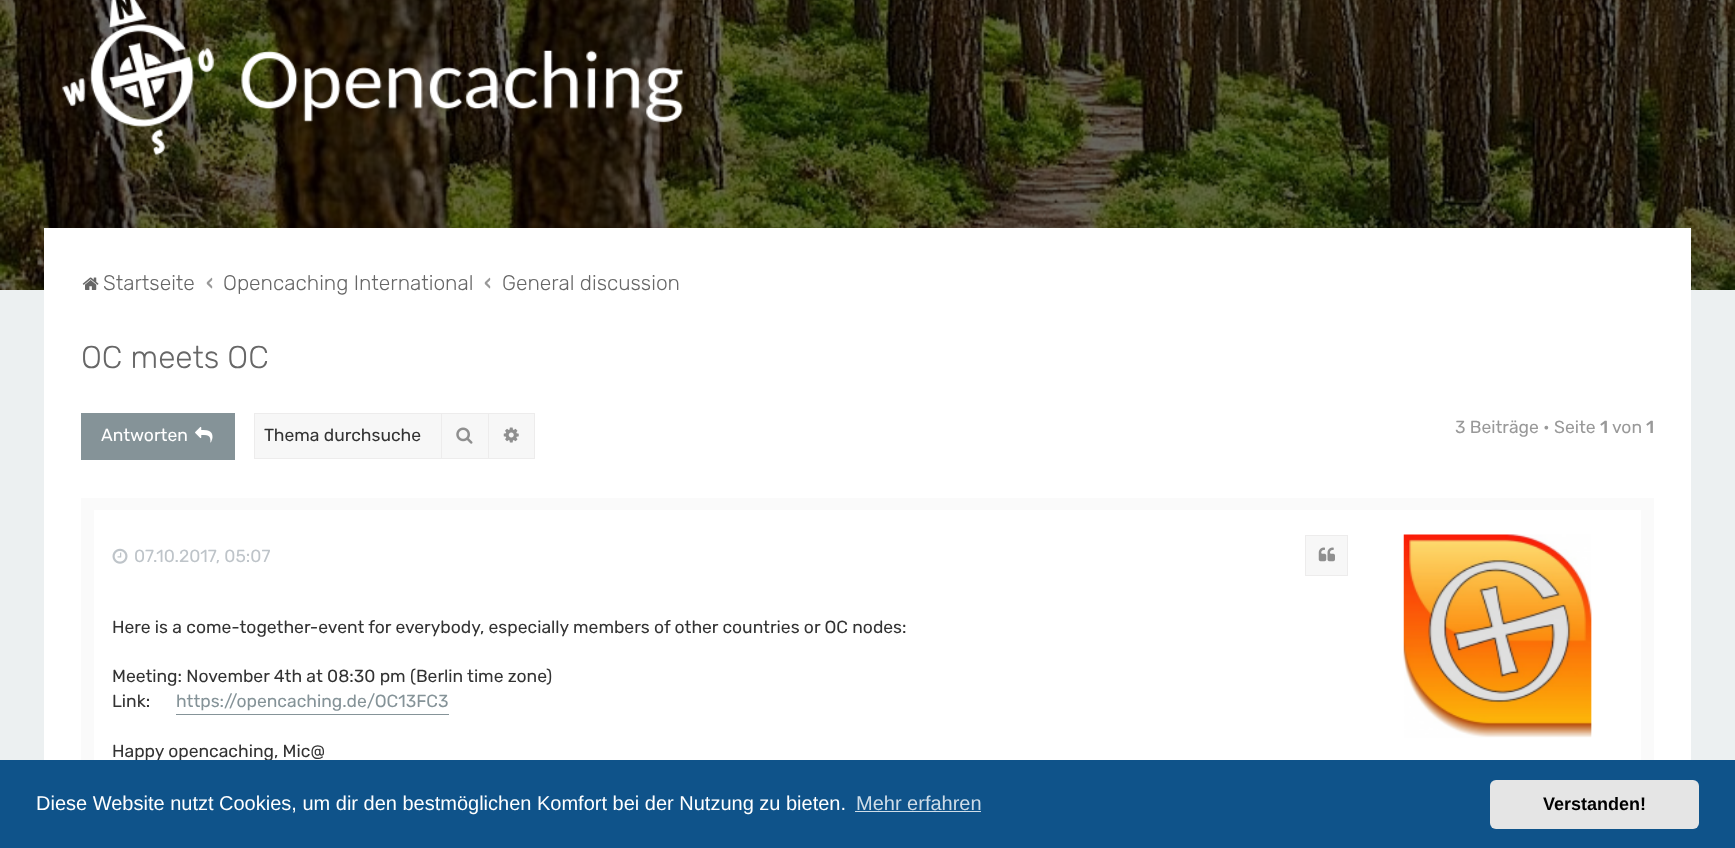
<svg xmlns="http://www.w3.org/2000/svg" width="1735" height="848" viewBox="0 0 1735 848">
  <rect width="100%" height="100%" fill="rgb(236,240,241)"/>
  <image x="0" y="0" width="1735" height="290" href="pic1.png"/>
  <image x="62" y="0" width="621" height="155" href="pic2.png"/>
  <rect x="44" y="228" width="1647" height="532" fill="rgb(255,255,255)"/>
  <image x="82" y="277" width="17" height="13" href="pic3.png"/>
  <text x="103" y="290" font-family="Rubik" font-size="21" font-weight="300" fill="rgb(103,103,103)">Startseite</text>
  <text x="206" y="290" font-family="Rubik" font-size="21" font-weight="500" fill="rgb(153,153,153)">‹</text>
  <text x="223" y="290" font-family="Rubik" font-size="21" font-weight="300" fill="rgb(103,103,103)">Opencaching International</text>
  <text x="484" y="290" font-family="Rubik" font-size="21" font-weight="500" fill="rgb(153,153,153)">‹</text>
  <text x="502" y="290" font-family="Rubik" font-size="21" font-weight="300" fill="rgb(103,103,103)">General discussion</text>
  <text x="81" y="368" font-family="Rubik" font-size="31.5" font-weight="300" fill="rgb(103,103,103)">OC meets OC</text>
  <rect x="81" y="413" width="154" height="47" fill="rgb(133,147,152)"/>
  <text x="101" y="441" font-family="Rubik" font-size="17.5" fill="rgb(255,255,255)">Antworten</text>
  <image x="195" y="426" width="18" height="17" href="pic4.png"/>
  <rect x="255" y="414" width="186" height="44" fill="rgb(247,247,247)"/>
  <rect x="254" y="413" width="187" height="1" fill="rgb(237,236,236)"/>
  <rect x="254" y="458" width="187" height="1" fill="rgb(237,236,236)"/>
  <rect x="254" y="413" width="1" height="46" fill="rgb(237,236,236)"/>
  <text x="264" y="441" font-family="Rubik" font-size="17.5" fill="rgb(51,51,51)">Thema durchsuche</text>
  <rect x="441.5" y="413.5" width="47" height="45" fill="rgb(247,247,247)" stroke="rgb(237,236,236)"/>
  <image x="456" y="427" width="17" height="17" href="pic5.png"/>
  <rect x="489" y="414" width="45" height="44" fill="rgb(247,247,247)"/>
  <rect x="489" y="413" width="46" height="1" fill="rgb(237,236,236)"/>
  <rect x="534" y="413" width="1" height="46" fill="rgb(237,236,236)"/>
  <rect x="489" y="458" width="46" height="1" fill="rgb(237,236,236)"/>
  <image x="503" y="427" width="16" height="16" href="pic6.png"/>
  <text x="1455" y="433" font-family="Rubik" font-size="17.5" fill="rgb(153,153,153)">3 Beiträge • Seite</text>
  <text x="1600" y="433" font-family="Rubik" font-size="17.5" font-weight="500" fill="rgb(153,153,153)">1</text>
  <text x="1612" y="433" font-family="Rubik" font-size="17.5" fill="rgb(153,153,153)">von</text>
  <text x="1646" y="433" font-family="Rubik" font-size="17.5" font-weight="500" fill="rgb(153,153,153)">1</text>
  <rect x="81" y="498" width="1573" height="262" fill="rgb(250,250,250)"/>
  <rect x="94" y="510" width="1547" height="250" fill="rgb(255,255,255)"/>
  <image x="112" y="548" width="16" height="16" href="pic7.png"/>
  <text x="134" y="562" font-family="Rubik" font-size="17.5" fill="rgb(190,196,201)">07.10.2017, 05:07</text>
  <rect x="1305.5" y="535.5" width="42" height="40" fill="rgb(247,247,247)" stroke="rgb(237,236,236)"/>
  <image x="1318" y="547" width="17" height="15" href="pic8.png"/>
  <g font-family="Rubik" font-size="17.5" fill="rgb(51,51,51)">
    <text x="112" y="633">Here is a come-together-event for everybody, especially members of other countries or OC nodes:</text>
    <text>
      <tspan x="112" y="682">Meeting: November 4th at 08:30 pm (Berlin time zone)</tspan>
      <tspan x="112" y="707">Link:</tspan>
    </text>
  </g>
  <rect x="176" y="714" width="273" height="1" fill="rgb(133,147,152)"/>
  <text x="176" y="707" font-family="Rubik" font-size="17.5" fill="rgb(133,147,152)">https://opencaching.de/OC13FC3</text>
  <text x="112" y="757" font-family="Rubik" font-size="17.5" fill="rgb(51,51,51)">Happy opencaching, Mic@</text>
  <image x="1403" y="534" width="189" height="204" href="pic9.png"/>
  <rect x="0" y="760" width="1735" height="88" fill="rgb(15,83,138)"/>
  <text x="36" y="810" font-family="Liberation Sans" font-size="20" fill="rgb(255,255,255)">Diese Website nutzt Cookies, um dir den bestmöglichen Komfort bei der Nutzung zu bieten.</text>
  <text x="856" y="810" font-family="Liberation Sans" font-size="20" fill="rgb(207,221,232)">Mehr erfahren</text>
  <rect x="855" y="811" width="126" height="1" fill="rgb(207,221,232)"/>
  <rect x="1490" y="780" width="209" height="49" rx="6" fill="rgb(229,229,229)"/>
  <text x="1543" y="810" font-family="Liberation Sans" font-size="18" font-weight="bold" fill="rgb(0,0,0)">Verstanden!</text>
</svg>
